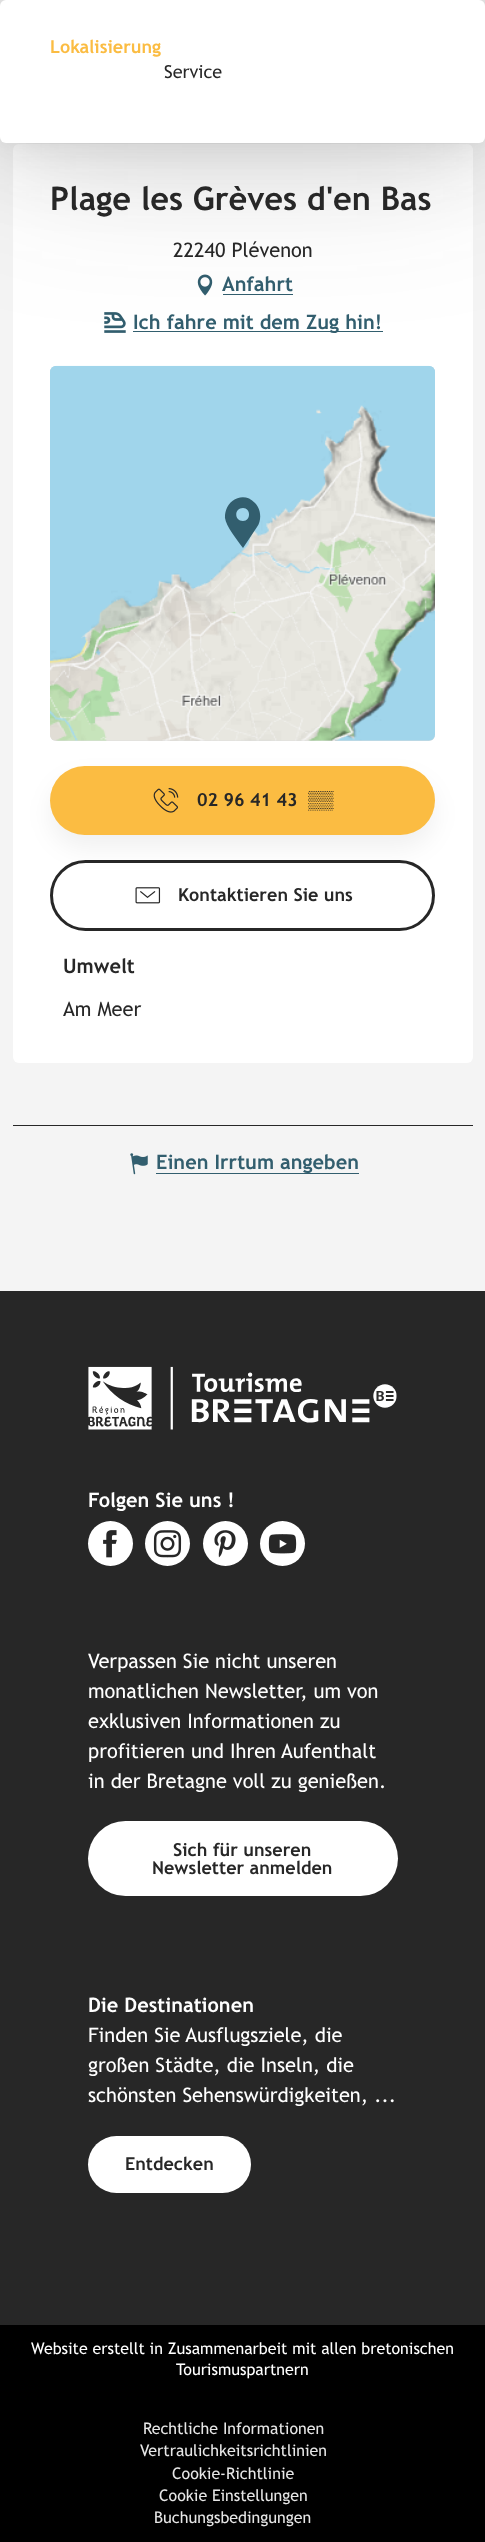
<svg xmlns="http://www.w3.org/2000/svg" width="485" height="2542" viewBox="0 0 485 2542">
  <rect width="100%" height="100%" fill="rgb(244,244,244)"/>
  <rect x="13" y="144" width="460" height="919" rx="6" fill="rgb(255,255,255)"/>
  <image x="197" y="274" width="16" height="22" href="pic1.png"/>
  <rect x="223" y="294" width="70" height="1" fill="rgb(50,94,110)"/>
  <image x="104" y="312" width="22" height="21" href="pic2.png"/>
  <rect x="133" y="331" width="250" height="1" fill="rgb(50,94,110)"/>
  <rect x="50" y="366" width="385" height="375" rx="6" fill="rgb(221,221,221)"/>
  <image x="50" y="365" width="385" height="376" href="pic3.png"/>
  <rect x="0" y="0" width="485" height="143" rx="6" fill="rgba(39,39,39,0.2)" filter="blur(87.5px)"/>
  <rect x="0" y="0" width="485" height="143" rx="6" fill="rgba(39,39,39,0.15)" filter="blur(44px)"/>
  <rect x="0" y="0" width="485" height="143" rx="6" fill="rgba(39,39,39,0.07)" filter="blur(14.5px)"/>
  <rect x="0" y="0" width="485" height="143" rx="6" fill="rgb(255,255,255)"/>
  <text x="50" y="53" font-family="Trebuchet MS" font-size="18" font-weight="bold" fill="rgb(251,188,66)">Lokalisierung</text>
  <text x="164" y="78" font-family="Trebuchet MS" font-size="18" fill="rgb(39,39,39)">Service</text>
  <text x="50" y="210" font-family="Trebuchet MS" font-size="32.5" font-weight="bold" fill="rgb(39,39,39)">Plage les Grèves d'en Bas</text>
  <text x="173" y="257" font-family="Trebuchet MS" font-size="20" fill="rgb(39,39,39)">22240 Plévenon</text>
  <g font-family="Trebuchet MS" font-size="20" font-weight="bold" fill="rgb(50,94,110)">
    <text x="222" y="291">Anfahrt</text>
    <text x="133" y="329">Ich fahre mit dem Zug hin!</text>
  </g>
  <path d="M255 503C243 490 224 501 225 518C226 526 237 540 243 548L257 527C262 520 261 509 255 503ZM243 521C234 521 234 508 243 508C251 508 251 521 243 521Z" fill="rgb(50,94,110)"/>
  <rect x="51.5" y="861.5" width="382" height="68" rx="34" fill="none" stroke="rgb(39,39,39)" stroke-width="3"/>
  <rect x="50" y="779" width="385" height="69" rx="34.5" fill="rgba(0,0,0,0.06)" filter="blur(12.5px)"/>
  <rect x="50" y="766" width="385" height="69" rx="34.5" fill="rgb(251,188,66)"/>
  <image x="153" y="788" width="26" height="25" href="pic4.png"/>
  <text x="197" y="806" font-family="Trebuchet MS" font-size="18" font-weight="bold" fill="rgb(39,39,39)">02 96 41 43</text>
  <text x="308" y="806" font-family="Liberation Sans" font-size="18" font-weight="bold" fill="rgb(39,39,39)">▒▒</text>
  <image x="135" y="887" width="26" height="17" href="pic5.png"/>
  <text x="178" y="901" font-family="Trebuchet MS" font-size="18" font-weight="bold" fill="rgb(39,39,39)">Kontaktieren Sie uns</text>
  <text x="63" y="973" font-family="Trebuchet MS" font-size="20" font-weight="bold" fill="rgb(39,39,39)">Umwelt</text>
  <text x="63" y="1016" font-family="Trebuchet MS" font-size="20" fill="rgb(39,39,39)">Am Meer</text>
  <rect x="13" y="1125" width="460" height="1" fill="rgb(39,39,39)"/>
  <image x="130" y="1153" width="18" height="22" href="pic6.png"/>
  <rect x="156" y="1173" width="203" height="1" fill="rgb(50,94,110)"/>
  <text x="156" y="1169" font-family="Trebuchet MS" font-size="20" font-weight="bold" fill="rgb(50,94,110)">Einen Irrtum angeben</text>
  <rect x="0" y="1291" width="485" height="1034" fill="rgb(39,39,39)"/>
  <image x="88" y="1366" width="309" height="64" href="pic7.png"/>
  <text x="88" y="1507" font-family="Trebuchet MS" font-size="20" font-weight="bold" fill="rgb(255,255,255)">Folgen Sie uns !</text>
  <circle cx="110.5" cy="1543.5" r="22.5" fill="rgb(255,255,255)"/>
  <image x="103" y="1530" width="14" height="28" href="pic8.png"/>
  <circle cx="167.5" cy="1543.5" r="22.5" fill="rgb(255,255,255)"/>
  <image x="153" y="1530" width="29" height="28" href="pic9.png"/>
  <circle cx="225.5" cy="1543.5" r="22.5" fill="rgb(255,255,255)"/>
  <image x="214" y="1530" width="22" height="28" href="pic10.png"/>
  <circle cx="282.5" cy="1543.5" r="22.5" fill="rgb(255,255,255)"/>
  <image x="268" y="1534" width="29" height="20" href="pic11.png"/>
  <g font-family="Trebuchet MS" font-size="20" fill="rgb(255,255,255)">
    <text>
      <tspan x="88" y="1668">Verpassen Sie nicht unseren</tspan>
      <tspan x="88" y="1698">monatlichen Newsletter, um von</tspan>
      <tspan x="88" y="1728">exklusiven Informationen zu</tspan>
      <tspan x="88" y="1758">profitieren und Ihren Aufenthalt</tspan>
      <tspan x="88" y="1788">in der Bretagne voll zu genießen.</tspan>
    </text>
  </g>
  <rect x="88" y="1821" width="310" height="75" rx="37.5" fill="rgb(255,255,255)"/>
  <g font-family="Trebuchet MS" font-size="18" font-weight="bold" fill="rgb(39,39,39)">
    <text x="173" y="1856">Sich für unseren</text>
    <text x="152" y="1874">Newsletter anmelden</text>
  </g>
  <text x="88" y="2012" font-family="Trebuchet MS" font-size="20" font-weight="bold" fill="rgb(255,255,255)">Die Destinationen</text>
  <g font-family="Trebuchet MS" font-size="20" fill="rgb(255,255,255)">
    <text>
      <tspan x="88" y="2042">Finden Sie Ausflugsziele, die</tspan>
      <tspan x="88" y="2072">großen Städte, die Inseln, die</tspan>
      <tspan x="88" y="2102">schönsten Sehenswürdigkeiten, ...</tspan>
    </text>
  </g>
  <rect x="88" y="2136" width="163" height="57" rx="28.5" fill="rgb(255,255,255)"/>
  <text x="125" y="2170" font-family="Trebuchet MS" font-size="18" font-weight="bold" fill="rgb(39,39,39)">Entdecken</text>
  <rect x="0" y="2325" width="485" height="217" fill="rgb(0,0,0)"/>
  <g font-family="Trebuchet MS" font-size="16" fill="rgb(255,255,255)">
    <text x="31" y="2354">Website erstellt in Zusammenarbeit mit allen bretonischen</text>
    <text x="176" y="2375">Tourismuspartnern</text>
  </g>
  <g font-family="Trebuchet MS" font-size="16" fill="rgb(230,230,230)">
    <text x="143" y="2434">Rechtliche Informationen</text>
    <text x="140" y="2456">Vertraulichkeitsrichtlinien</text>
    <text x="172" y="2479">Cookie-Richtlinie</text>
    <text x="159" y="2501">Cookie Einstellungen</text>
    <text x="154" y="2523">Buchungsbedingungen</text>
  </g>
</svg>
